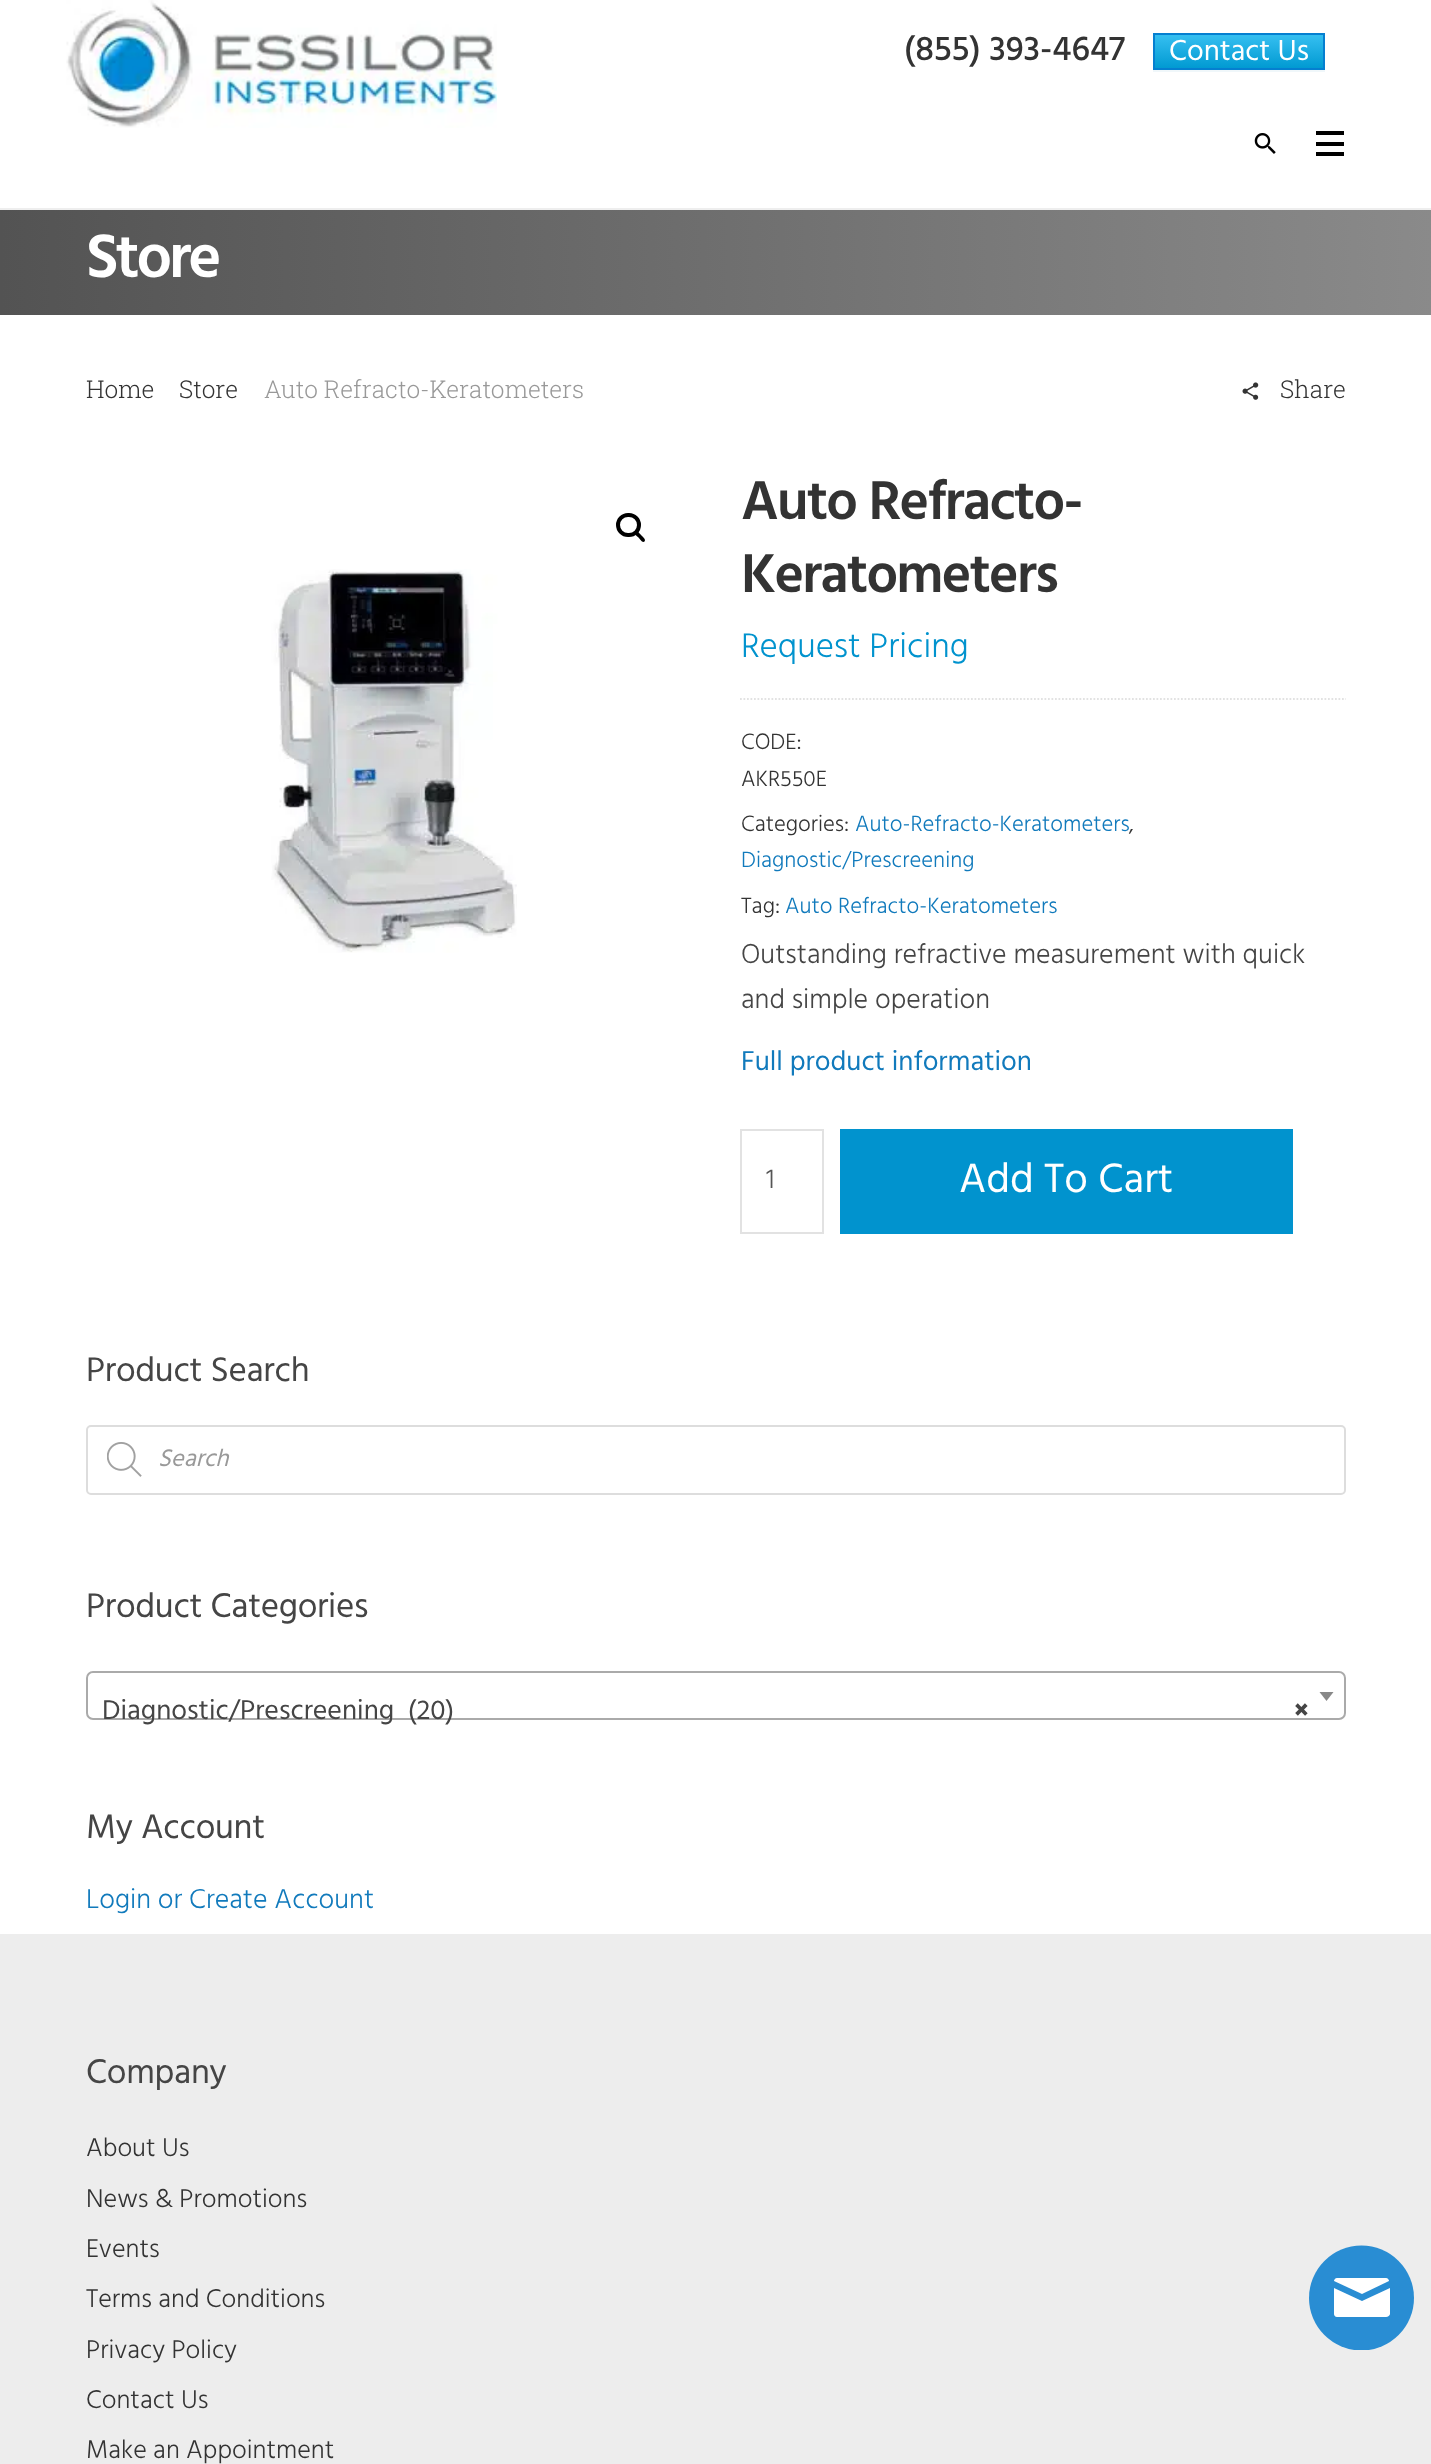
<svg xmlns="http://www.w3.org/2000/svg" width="1431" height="2464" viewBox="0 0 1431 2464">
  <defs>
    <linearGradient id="g1" gradientUnits="userSpaceOnUse" x1="1239" y1="35" x2="1239" y2="68"><stop offset="0.05" stop-color="rgb(51,189,239)"/><stop offset="1" stop-color="rgb(1,154,210)"/></linearGradient>
    <linearGradient id="g2" gradientUnits="userSpaceOnUse" x1="0" y1="263" x2="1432" y2="262"><stop offset="0" stop-color="rgb(83,83,83)"/><stop offset="1" stop-color="rgb(138,138,138)"/></linearGradient>
    <clipPath id="clip1"><rect x="1309" y="2245" width="105" height="105"/></clipPath>
  </defs>
  <rect width="100%" height="100%" fill="rgb(255,255,255)"/>
  <rect x="0" y="208" width="1431" height="2" fill="rgb(238,238,238)"/>
  <image x="66" y="0" width="431" height="128" href="pic1.png"/>
  <text x="904" y="60" font-family="Hind" font-size="35" font-weight="500" fill="rgb(51,51,51)">(855) 393-4647</text>
  <path d="M1153 35V72H1325V35V70H1153Z" fill="rgb(240,247,250)"/>
  <rect x="1155" y="35" width="168" height="33" fill="url(#g1)"/>
  <rect x="1154" y="34" width="170" height="35" fill="none" stroke="rgb(5,127,208)" stroke-width="2"/>
  <text x="1169" y="60" font-family="Hind" font-size="29.75" fill="rgb(255,255,255)">Contact Us</text>
  <image x="1254" y="133" width="22" height="21" href="pic2.png"/>
  <rect x="1316" y="131" width="28" height="4" fill="rgb(0,0,0)"/>
  <rect x="1316" y="142" width="28" height="4" fill="rgb(0,0,0)"/>
  <rect x="1316" y="152" width="28" height="4" fill="rgb(0,0,0)"/>
  <rect x="0" y="210" width="1431" height="105" fill="url(#g2)"/>
  <text x="86" y="277" font-family="Hind" font-size="63" font-weight="600" letter-spacing="-3" fill="rgb(255,255,255)">Store</text>
  <g font-family="Roboto Slab" font-size="24.5" font-weight="300" fill="rgb(51,51,51)">
    <text x="86" y="398">Home</text>
    <text x="179" y="398">Store</text>
  </g>
  <text x="264" y="398" font-family="Roboto Slab" font-size="24.5" font-weight="300" fill="rgb(153,153,153)">Auto Refracto-Keratometers</text>
  <image x="1242" y="382" width="17" height="18" href="pic3.png"/>
  <text x="1280" y="398" font-family="Roboto Slab" font-size="24.5" font-weight="300" fill="rgb(51,51,51)">Share</text>
  <rect x="618" y="515" width="21" height="20" rx="10" fill="none" stroke="rgb(0,0,0)" stroke-width="4"/>
  <path d="M635 531.5C637 529.5 640 534 641 535C642 536 646.5 539.5 644.5 541.5C642.5 543.5 639.5 538.5 638.5 537.5C637.5 536.5 633 533.5 635 531.5Z" fill="rgb(0,0,0)"/>
  <image x="271" y="569" width="246" height="384" href="pic4.png"/>
  <g font-family="Hind" font-size="56" font-weight="600" letter-spacing="-1.75" fill="rgb(51,51,51)">
    <text>
      <tspan x="741" y="519">Auto Refracto-</tspan>
      <tspan x="741" y="592">Keratometers</tspan>
    </text>
  </g>
  <text x="741" y="657" font-family="Hind" font-size="35" font-weight="300" fill="rgb(1,147,206)">Request Pricing</text>
  <path d="M740 699H1346" fill="none" stroke="rgb(226,226,226)" stroke-width="1.8" stroke-dasharray="1.75 1.75"/>
  <g font-family="Hind" font-size="22.75" font-weight="300" fill="rgb(51,51,51)">
    <text>
      <tspan x="741" y="749">CODE:</tspan>
      <tspan x="741" y="786">AKR550E</tspan>
      <tspan x="741" y="831">Categories:</tspan>
    </text>
  </g>
  <text x="855" y="831" font-family="Hind" font-size="22.75" font-weight="300" fill="rgb(17,122,188)">Auto-Refracto-Keratometers</text>
  <text x="1129" y="831" font-family="Hind" font-size="22.75" font-weight="300" fill="rgb(51,51,51)">,</text>
  <text x="741" y="867" font-family="Hind" font-size="22.75" font-weight="300" fill="rgb(17,122,188)">Diagnostic/Prescreening</text>
  <text x="741" y="913" font-family="Hind" font-size="22.75" font-weight="300" fill="rgb(51,51,51)">Tag:</text>
  <text x="785" y="913" font-family="Hind" font-size="22.75" font-weight="300" fill="rgb(17,122,188)">Auto Refracto-Keratometers</text>
  <g font-family="Hind" font-size="28" font-weight="300" fill="rgb(69,69,69)">
    <text>
      <tspan x="741" y="963">Outstanding refractive measurement with quick</tspan>
      <tspan x="741" y="1008">and simple operation</tspan>
    </text>
  </g>
  <text x="741" y="1070" font-family="Hind" font-size="28" fill="rgb(17,122,188)">Full product information</text>
  <rect x="741" y="1130" width="82" height="103" fill="none" stroke="rgb(226,226,226)" stroke-width="2"/>
  <text x="766" y="1188" font-family="Hind" font-size="28" font-weight="300" fill="rgb(85,85,85)">1</text>
  <rect x="840" y="1129" width="453" height="105" fill="rgb(1,147,206)"/>
  <text x="959" y="1192" font-family="Hind" font-size="42" fill="rgb(255,255,255)">Add To Cart</text>
  <text x="86" y="1381" font-family="Hind" font-size="35" letter-spacing="-0.3" fill="rgb(69,69,69)">Product Search</text>
  <rect x="87" y="1426" width="1258" height="68" rx="4" fill="none" stroke="rgb(221,221,221)" stroke-width="2"/>
  <image x="107" y="1442" width="35" height="35" href="pic5.png"/>
  <text x="158" y="1466" font-family="Hind" font-size="24.5" font-style="italic" fill="rgb(153,153,153)">Search</text>
  <text x="86" y="1617" font-family="Hind" font-size="35" letter-spacing="-0.3" fill="rgb(69,69,69)">Product Categories</text>
  <rect x="87" y="1672" width="1258" height="47" rx="6" fill="none" stroke="rgb(170,170,170)" stroke-width="2"/>
  <path d="M1319.5 1692H1333.5L1326.5 1701Z" fill="rgb(136,136,136)"/>
  <text x="102" y="1719" font-family="Hind" font-size="28" fill="rgb(69,69,69)" xml:space="preserve">Diagnostic/Prescreening  (20)</text>
  <text x="1294" y="1719" font-family="Hind" font-size="28" font-weight="bold" fill="rgb(69,69,69)">×</text>
  <text x="86" y="1838" font-family="Hind" font-size="35" letter-spacing="-0.3" fill="rgb(69,69,69)">My Account</text>
  <text x="86" y="1908" font-family="Hind" font-size="28" font-weight="300" fill="rgb(17,122,188)">Login or Create Account</text>
  <rect x="0" y="1934" width="1431" height="530" fill="rgb(237,237,237)"/>
  <text x="86" y="2083" font-family="Hind" font-size="35" letter-spacing="-0.3" fill="rgb(69,69,69)">Company</text>
  <g font-family="Hind" font-size="26.25" font-weight="300" fill="rgb(51,51,51)">
    <text>
      <tspan x="86" y="2156">About Us</tspan>
      <tspan x="86" y="2207">News &amp; Promotions</tspan>
      <tspan x="86" y="2257">Events</tspan>
      <tspan x="86" y="2307">Terms and Conditions</tspan>
      <tspan x="86" y="2358">Privacy Policy</tspan>
      <tspan x="86" y="2408">Contact Us</tspan>
      <tspan x="86" y="2458">Make an Appointment</tspan>
    </text>
  </g>
  <g clip-path="url(#clip1)">
    <circle cx="1361.5" cy="2298" r="52.5" fill="rgb(41,141,211)"/>
  </g>
  <path d="M1334 2281L1362 2294L1389 2281C1389 2280 1388 2278 1386 2278H1337C1335 2278 1334 2280 1334 2281Z" fill="rgb(255,255,255)"/>
  <path d="M1390 2288L1362 2301L1334 2288V2314C1334 2315 1335 2317 1337 2317H1386C1388 2317 1390 2315 1390 2314Z" fill="rgb(255,255,255)"/>
</svg>
